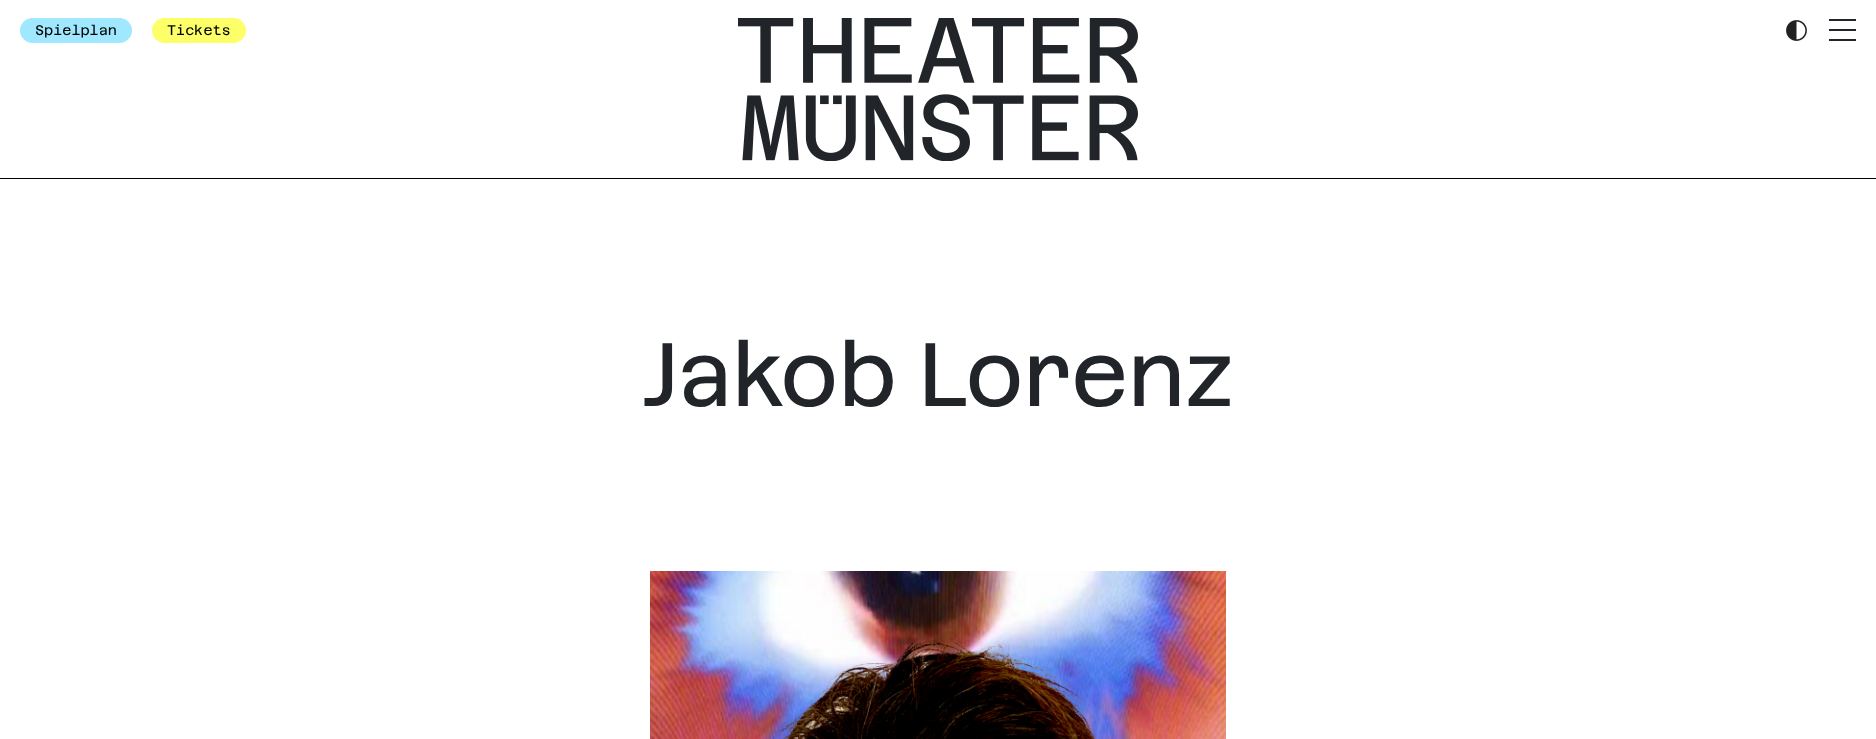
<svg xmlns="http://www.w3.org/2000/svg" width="1876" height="739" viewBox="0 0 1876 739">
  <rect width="100%" height="100%" fill="rgb(255,255,255)"/>
  <rect x="0" y="178" width="1876" height="1" fill="rgb(0,0,0)"/>
  <rect x="20" y="18" width="112" height="25" rx="12.5" fill="rgb(160,232,255)"/>
  <text x="35" y="35" font-family="Azeret Mono" font-size="14" fill="rgb(0,0,0)">Spielplan</text>
  <rect x="152" y="18" width="94" height="25" rx="12.5" fill="rgb(252,255,104)"/>
  <text x="167" y="35" font-family="Azeret Mono" font-size="14" fill="rgb(0,0,0)">Tickets</text>
  <image x="738" y="18" width="400" height="143" href="pic1.png"/>
  <image x="1786" y="20" width="21" height="21" href="pic2.png"/>
  <rect x="1829" y="19" width="27" height="2" fill="rgb(33,37,41)"/>
  <rect x="1829" y="29" width="27" height="2" fill="rgb(33,37,41)"/>
  <rect x="1829" y="39" width="27" height="2" fill="rgb(33,37,41)"/>
  <text x="642" y="406" font-family="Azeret" font-size="90" fill="rgb(33,37,41)">Jakob Lorenz</text>
  <image x="650" y="571" width="576" height="168" href="pic3.png"/>
</svg>
